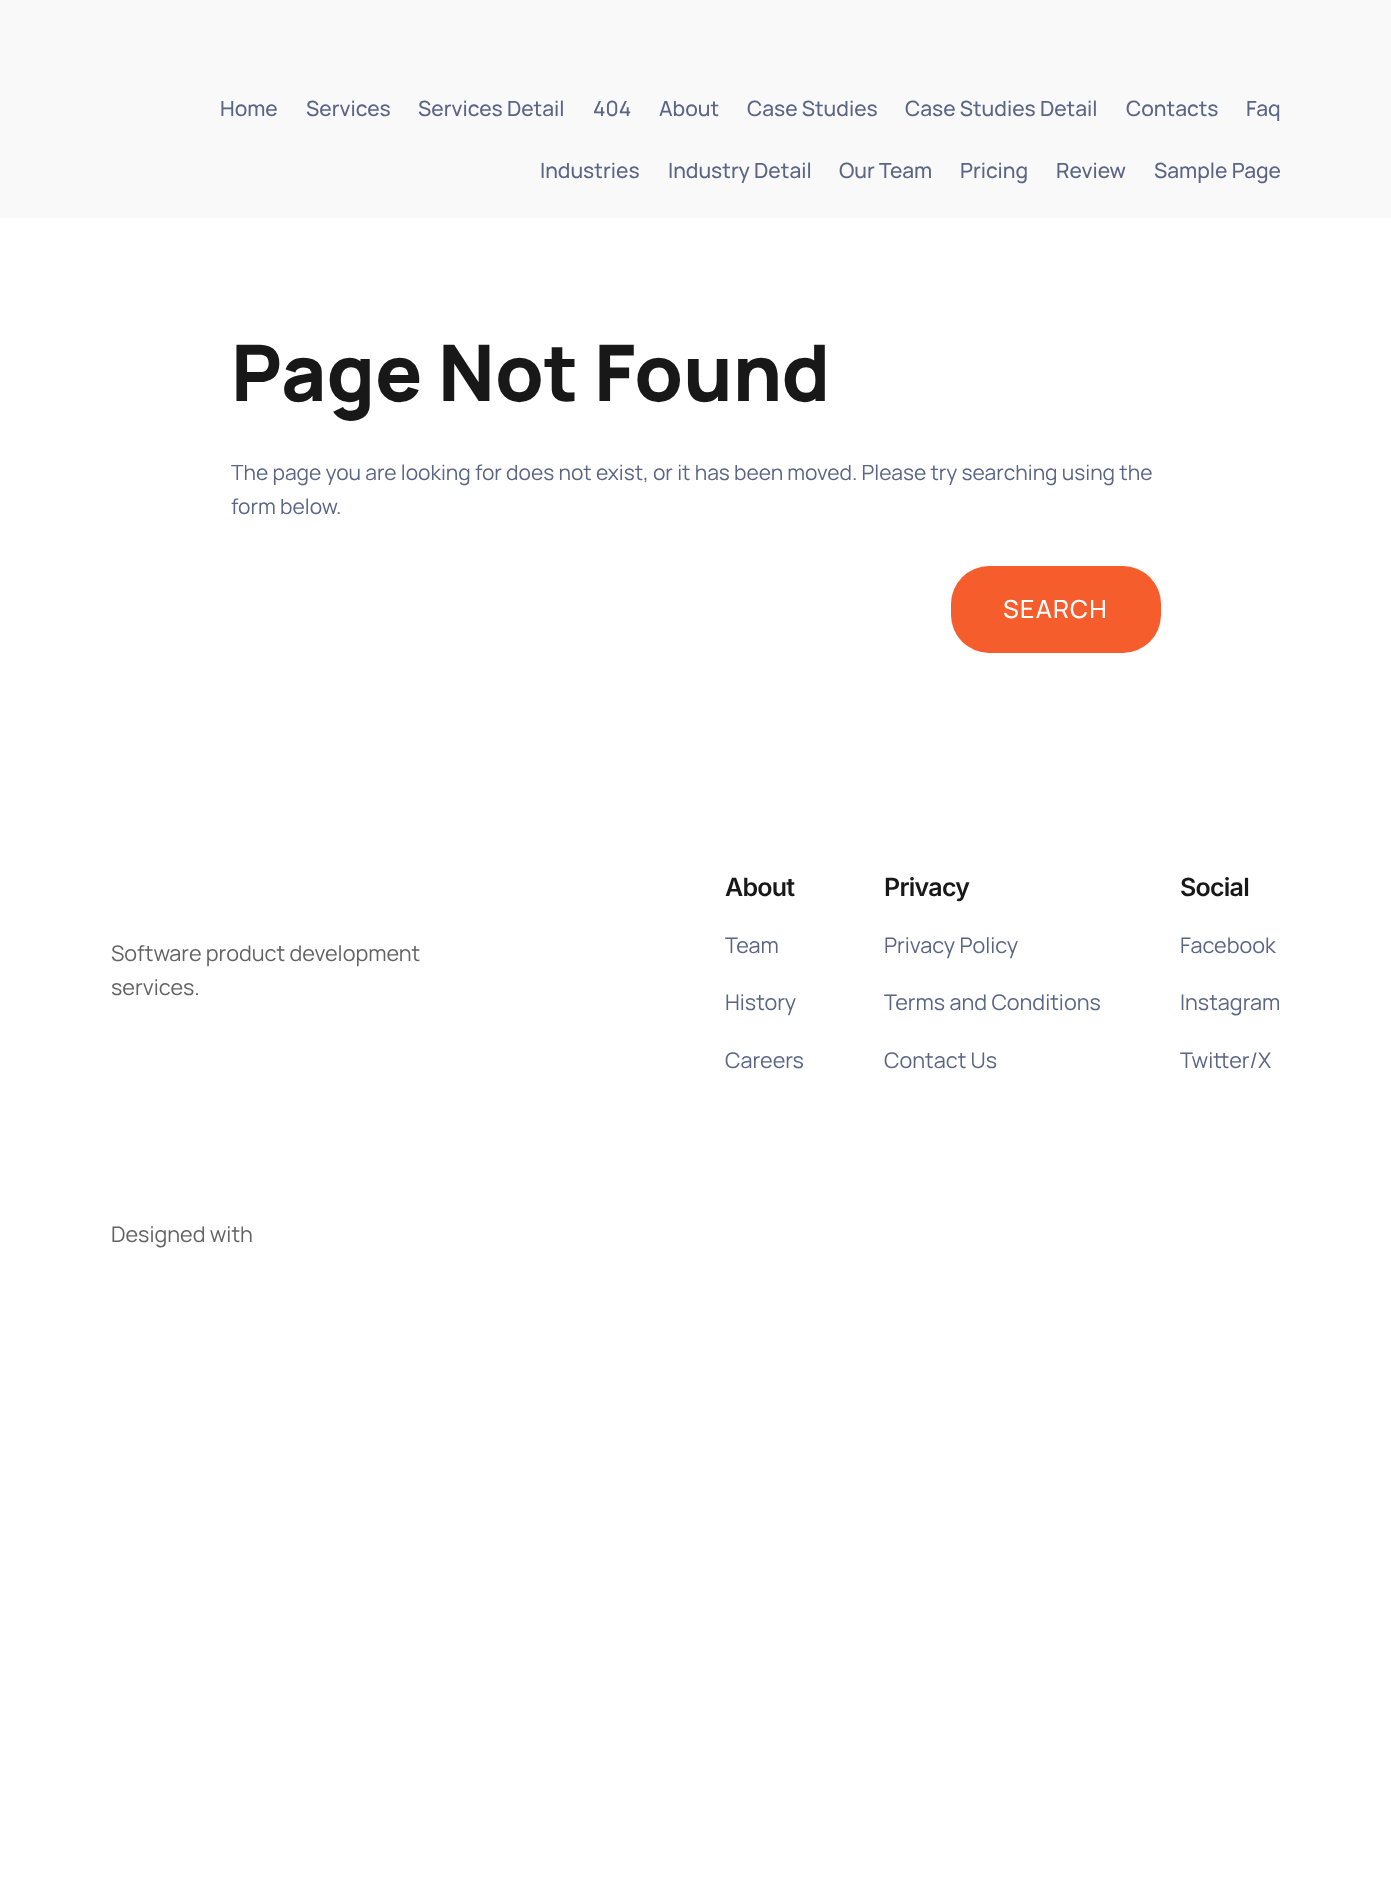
<svg xmlns="http://www.w3.org/2000/svg" width="1391" height="1885" viewBox="0 0 1391 1885">
  <rect width="100%" height="100%" fill="rgb(255,255,255)"/>
  <rect x="0" y="0" width="1391" height="218" fill="rgb(249,249,249)"/>
  <g font-family="Manrope" font-size="21" font-weight="500" fill="rgb(91,101,133)">
    <text x="220" y="116">Home</text>
    <text x="306" y="116">Services</text>
    <text x="418" y="116">Services Detail</text>
    <text x="593" y="116">404</text>
    <text x="659" y="116">About</text>
    <text x="747" y="116">Case Studies</text>
    <text x="905" y="116">Case Studies Detail</text>
    <text x="1126" y="116">Contacts</text>
    <text x="1246" y="116">Faq</text>
    <text x="540" y="178">Industries</text>
    <text x="668" y="178">Industry Detail</text>
    <text x="839" y="178">Our Team</text>
    <text x="960" y="178">Pricing</text>
    <text x="1056" y="178">Review</text>
    <text x="1154" y="178">Sample Page</text>
  </g>
  <text x="231" y="401" font-family="Manrope" font-size="78" font-weight="800" fill="rgb(24,24,24)">Page Not Found</text>
  <g font-family="Manrope" font-size="21" fill="rgb(91,101,133)">
    <text>
      <tspan x="231" y="480">The page you are looking for does not exist, or it has been moved. Please try searching using the</tspan>
      <tspan x="231" y="514">form below.</tspan>
    </text>
  </g>
  <rect x="951" y="566" width="210" height="87" rx="38" fill="rgb(245,93,45)"/>
  <text x="1003" y="618" font-family="Manrope" font-size="25" font-weight="500" letter-spacing="1.25" fill="rgb(255,255,255)">SEARCH</text>
  <g font-family="Manrope" font-size="21.6" fill="rgb(99,99,99)">
    <text>
      <tspan x="111" y="961">Software product development</tspan>
      <tspan x="111" y="995">services.</tspan>
    </text>
  </g>
  <text x="725" y="896" font-family="Inter" font-size="25" font-weight="600" letter-spacing="-0.75" fill="rgb(24,24,24)">About</text>
  <g font-family="Manrope" font-size="21.6" fill="rgb(91,101,133)">
    <text x="725" y="953">Team</text>
    <text x="725" y="1010">History</text>
    <text x="725" y="1068">Careers</text>
  </g>
  <text x="884" y="896" font-family="Inter" font-size="25" font-weight="600" letter-spacing="-0.75" fill="rgb(24,24,24)">Privacy</text>
  <g font-family="Manrope" font-size="21.6" fill="rgb(91,101,133)">
    <text x="884" y="953">Privacy Policy</text>
    <text x="884" y="1010">Terms and Conditions</text>
    <text x="884" y="1068">Contact Us</text>
  </g>
  <text x="1180" y="896" font-family="Inter" font-size="25" font-weight="600" letter-spacing="-0.75" fill="rgb(24,24,24)">Social</text>
  <g font-family="Manrope" font-size="21.6" fill="rgb(91,101,133)">
    <text x="1180" y="953">Facebook</text>
    <text x="1180" y="1010">Instagram</text>
    <text x="1180" y="1068">Twitter/X</text>
  </g>
  <text x="111" y="1242" font-family="Manrope" font-size="21.6" fill="rgb(99,99,99)">Designed with</text>
</svg>
